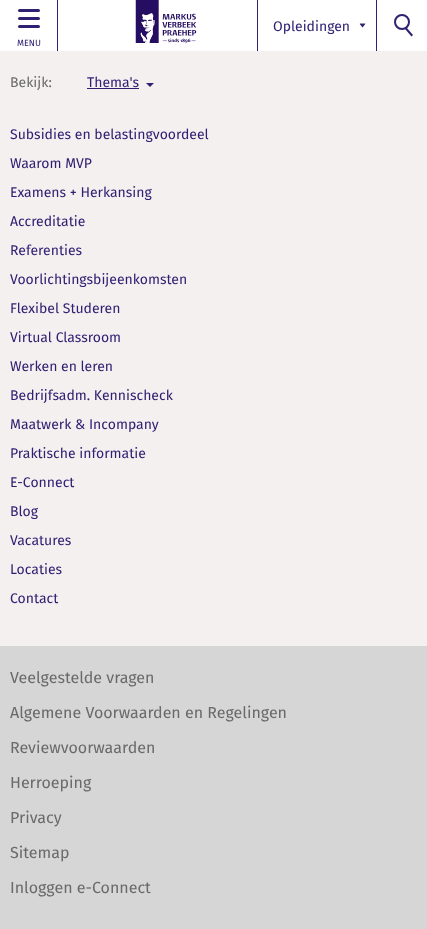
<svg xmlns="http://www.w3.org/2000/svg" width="427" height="929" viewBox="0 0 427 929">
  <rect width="100%" height="100%" fill="rgb(244,240,240)"/>
  <rect x="0" y="0" width="427" height="51" fill="rgb(255,255,255)"/>
  <image x="135" y="0" width="62" height="43" href="pic1.png"/>
  <rect x="257" y="0" width="1" height="51" fill="rgb(47,33,114)"/>
  <text x="273" y="31" font-family="Fira Sans" font-size="14" fill="rgb(47,33,114)">Opleidingen</text>
  <image x="359" y="23" width="7" height="5" href="pic2.png"/>
  <rect x="376" y="0" width="1" height="51" fill="rgb(47,33,114)"/>
  <path d="M413 35L411.5 36.5L405 29L406.5 27.5Z" fill="rgb(47,33,114)"/>
  <circle cx="402" cy="22" r="7" fill="none" stroke="rgb(47,33,114)" stroke-width="2"/>
  <rect x="57" y="0" width="1" height="51" fill="rgb(47,33,114)"/>
  <rect x="18" y="17" width="22" height="3" rx="1.5" fill="rgb(47,33,114)"/>
  <rect x="18" y="9" width="22" height="3" rx="1.5" fill="rgb(47,33,114)"/>
  <rect x="18" y="25" width="22" height="3" rx="1.5" fill="rgb(47,33,114)"/>
  <text x="17" y="46" font-family="Fira Sans" font-size="9" fill="rgb(47,33,114)">MENU</text>
  <text x="10" y="87" font-family="Fira Sans" font-size="14" fill="rgb(106,106,106)">Bekijk:</text>
  <text x="87" y="87" font-family="Fira Sans" font-size="14" fill="rgb(47,33,114)">Thema's</text>
  <rect x="87" y="88" width="52" height="1" fill="rgb(47,33,114)"/>
  <path d="M146 83H154L150 87Z" fill="rgb(47,33,114)"/>
  <g font-family="Fira Sans" font-size="14" fill="rgb(47,33,114)">
    <text x="10" y="139">Subsidies en belastingvoordeel</text>
    <text x="10" y="168">Waarom MVP</text>
    <text x="10" y="197">Examens + Herkansing</text>
    <text x="10" y="226">Accreditatie</text>
    <text x="10" y="255">Referenties</text>
    <text x="10" y="284">Voorlichtingsbijeenkomsten</text>
    <text x="10" y="313">Flexibel Studeren</text>
    <text x="10" y="342">Virtual Classroom</text>
    <text x="10" y="371">Werken en leren</text>
    <text x="10" y="400">Bedrijfsadm. Kennischeck</text>
    <text x="10" y="429">Maatwerk &amp; Incompany</text>
    <text x="10" y="458">Praktische informatie</text>
    <text x="10" y="487">E-Connect</text>
    <text x="10" y="516">Blog</text>
    <text x="10" y="545">Vacatures</text>
    <text x="10" y="574">Locaties</text>
    <text x="10" y="603">Contact</text>
  </g>
  <rect x="0" y="646" width="427" height="283" fill="rgb(214,214,214)"/>
  <g font-family="Fira Sans" font-size="16" fill="rgb(106,106,106)">
    <text x="10" y="683">Veelgestelde vragen</text>
    <text x="10" y="718">Algemene Voorwaarden en Regelingen</text>
    <text x="10" y="753">Reviewvoorwaarden</text>
    <text x="10" y="788">Herroeping</text>
    <text x="10" y="823">Privacy</text>
    <text x="10" y="858">Sitemap</text>
    <text x="10" y="893">Inloggen e-Connect</text>
  </g>
</svg>
